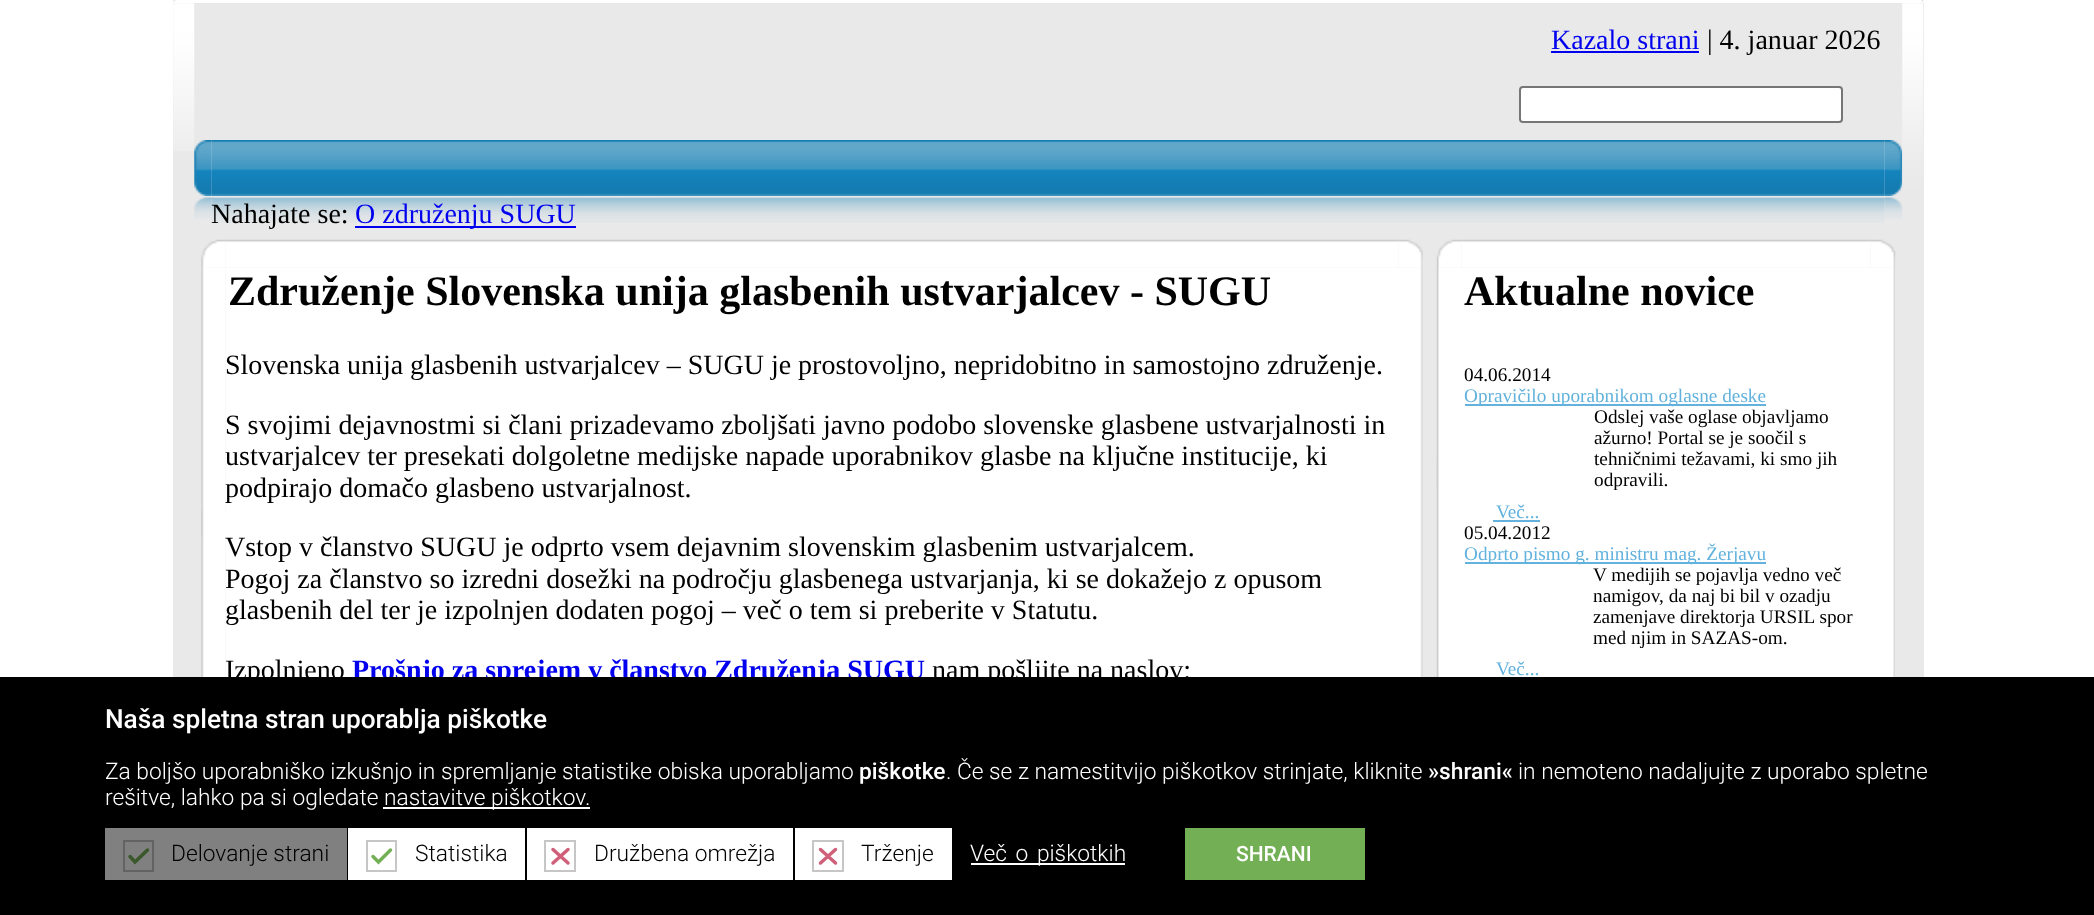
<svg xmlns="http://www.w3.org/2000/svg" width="2094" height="915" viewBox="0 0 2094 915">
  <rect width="100%" height="100%" fill="rgb(255,255,255)"/>
  <rect x="173" y="3" width="1751" height="674" fill="rgb(233,233,233)"/>
  <image x="173" y="0" width="21" height="4" href="pic1.png"/>
  <image x="1902" y="0" width="22" height="4" href="pic2.png"/>
  <image x="173" y="3" width="22" height="148" href="pic3.png"/>
  <text x="1551" y="49" font-family="Liberation Serif" font-size="28" fill="rgb(0,0,238)">Kazalo strani</text>
  <rect x="1551" y="51" width="148" height="2" fill="rgb(0,0,238)"/>
  <text x="1707" y="49" font-family="Liberation Serif" font-size="28" fill="rgb(0,0,0)">| 4. januar 2026</text>
  <rect x="1520" y="87" width="322" height="35" rx="3" fill="rgb(255,255,255)" stroke="rgb(118,118,118)" stroke-width="2"/>
  <image x="211" y="140" width="1674" height="56" href="pic5.png"/>
  <image x="194" y="140" width="18" height="56" href="pic4.png"/>
  <image x="1884" y="140" width="19" height="56" href="pic6.png"/>
  <image x="211" y="197" width="1674" height="26" href="pic8.png"/>
  <image x="194" y="197" width="18" height="22" href="pic7.png"/>
  <text x="211" y="223" font-family="Liberation Serif" font-size="28" fill="rgb(0,0,0)">Nahajate se:</text>
  <rect x="355" y="226" width="221" height="2" fill="rgb(0,0,238)"/>
  <text x="355" y="223" font-family="Liberation Serif" font-size="28" fill="rgb(0,0,238)">O združenju SUGU</text>
  <image x="1884" y="197" width="19" height="22" href="pic9.png"/>
  <image x="225" y="239" width="1174" height="29" href="pic11.png"/>
  <image x="201" y="267" width="25" height="410" href="pic13.png"/>
  <image x="201" y="239" width="25" height="29" href="pic10.png"/>
  <image x="1399" y="267" width="24" height="410" href="pic15.png"/>
  <image x="1398" y="239" width="25" height="29" href="pic12.png"/>
  <image x="201" y="510" width="25" height="27" href="pic14.png"/>
  <rect x="226" y="268" width="1173" height="409" fill="rgb(255,255,255)"/>
  <text x="228" y="305" font-family="Liberation Serif" font-size="42" font-weight="bold" fill="rgb(0,0,0)">Združenje Slovenska unija glasbenih ustvarjalcev - SUGU</text>
  <g font-family="Liberation Serif" font-size="28" fill="rgb(0,0,0)">
    <text x="225" y="374">Slovenska unija glasbenih ustvarjalcev – SUGU je prostovoljno, nepridobitno in samostojno združenje.</text>
    <text>
      <tspan x="225" y="434">S svojimi dejavnostmi si člani prizadevamo zboljšati javno podobo slovenske glasbene ustvarjalnosti in</tspan>
      <tspan x="225" y="465">ustvarjalcev ter presekati dolgoletne medijske napade uporabnikov glasbe na ključne institucije, ki</tspan>
      <tspan x="225" y="497">podpirajo domačo glasbeno ustvarjalnost.</tspan>
    </text>
    <text>
      <tspan x="225" y="556">Vstop v članstvo SUGU je odprto vsem dejavnim slovenskim glasbenim ustvarjalcem.</tspan>
      <tspan x="225" y="588">Pogoj za članstvo so izredni dosežki na področju glasbenega ustvarjanja, ki se dokažejo z opusom</tspan>
      <tspan x="225" y="619">glasbenih del ter je izpolnjen dodaten pogoj – več o tem si preberite v Statutu.</tspan>
    </text>
    <text x="225" y="679">Izpolnjeno</text>
  </g>
  <text x="352" y="679" font-family="Liberation Serif" font-size="28" font-weight="bold" fill="rgb(0,0,238)">Prošnjo za sprejem v članstvo Združenja SUGU</text>
  <text x="932" y="679" font-family="Liberation Serif" font-size="28" fill="rgb(0,0,0)">nam pošljite na naslov:</text>
  <image x="1461" y="239" width="410" height="29" href="pic17.png"/>
  <image x="1436" y="267" width="26" height="410" href="pic19.png"/>
  <image x="1436" y="239" width="25" height="29" href="pic16.png"/>
  <image x="1871" y="267" width="24" height="410" href="pic20.png"/>
  <image x="1871" y="239" width="25" height="29" href="pic18.png"/>
  <rect x="1436" y="461" width="1" height="27" fill="rgb(221,221,221)"/>
  <rect x="1461" y="268" width="410" height="409" fill="rgb(255,255,255)"/>
  <text x="1464" y="305" font-family="Liberation Serif" font-size="42" font-weight="bold" fill="rgb(0,0,0)">Aktualne novice</text>
  <text x="1464" y="381" font-family="Liberation Serif" font-size="19.25" fill="rgb(0,0,0)">04.06.2014</text>
  <rect x="1465" y="404" width="301" height="2" fill="rgb(98,178,221)"/>
  <text x="1464" y="402" font-family="Liberation Serif" font-size="19.25" fill="rgb(98,178,221)">Opravičilo uporabnikom oglasne deske</text>
  <g font-family="Liberation Serif" font-size="19.25" fill="rgb(0,0,0)">
    <text>
      <tspan x="1594" y="423">Odslej vaše oglase objavljamo</tspan>
      <tspan x="1594" y="444">ažurno! Portal se je soočil s</tspan>
      <tspan x="1594" y="465">tehničnimi težavami, ki smo jih</tspan>
      <tspan x="1594" y="486">odpravili.</tspan>
    </text>
  </g>
  <text x="1496" y="518" font-family="Liberation Serif" font-size="19.25" fill="rgb(98,178,221)">Več...</text>
  <rect x="1493" y="520" width="47" height="2" fill="rgb(98,178,221)"/>
  <text x="1464" y="539" font-family="Liberation Serif" font-size="19.25" fill="rgb(0,0,0)">05.04.2012</text>
  <rect x="1465" y="562" width="301" height="2" fill="rgb(98,178,221)"/>
  <text x="1464" y="560" font-family="Liberation Serif" font-size="19.25" fill="rgb(98,178,221)">Odprto pismo g. ministru mag. Žerjavu</text>
  <g font-family="Liberation Serif" font-size="19.25" fill="rgb(0,0,0)">
    <text>
      <tspan x="1593" y="581">V medijih se pojavlja vedno več</tspan>
      <tspan x="1593" y="602">namigov, da naj bi bil v ozadju</tspan>
      <tspan x="1593" y="623">zamenjave direktorja URSIL spor</tspan>
      <tspan x="1593" y="644">med njim in SAZAS-om.</tspan>
    </text>
  </g>
  <text x="1496" y="675" font-family="Liberation Serif" font-size="19.25" fill="rgb(98,178,221)">Več...</text>
  <image x="1902" y="3" width="22" height="185" href="pic21.png"/>
  <rect x="0" y="677" width="2094" height="238" fill="rgb(0,0,0)"/>
  <text x="105" y="728" font-family="Roboto" font-size="26.25" font-weight="500" fill="rgb(255,255,255)">Naša spletna stran uporablja piškotke</text>
  <text x="105" y="779" font-family="Roboto" font-size="22.75" font-weight="300" fill="rgb(255,255,255)">Za boljšo uporabniško izkušnjo in spremljanje statistike obiska uporabljamo</text>
  <text x="859" y="779" font-family="Roboto" font-size="22.75" font-weight="500" fill="rgb(255,255,255)">piškotke</text>
  <text x="946" y="779" font-family="Roboto" font-size="22.75" font-weight="300" fill="rgb(255,255,255)">. Če se z namestitvijo piškotkov strinjate, kliknite</text>
  <text x="1428" y="779" font-family="Roboto" font-size="22.75" font-weight="500" fill="rgb(255,255,255)">»shrani«</text>
  <g font-family="Roboto" font-size="22.75" font-weight="300" fill="rgb(255,255,255)">
    <text x="1518" y="779">in nemoteno nadaljujte z uporabo spletne</text>
    <text x="105" y="805">rešitve, lahko pa si ogledate</text>
  </g>
  <rect x="383" y="807" width="207" height="2" fill="rgb(255,255,255)"/>
  <text x="384" y="805" font-family="Roboto" font-size="22.75" font-weight="300" fill="rgb(255,255,255)">nastavitve piškotkov.</text>
  <rect x="105" y="828" width="242" height="52" fill="rgb(128,128,128)"/>
  <path d="M147.5 850L135 862L130 856.5" fill="none" stroke="rgb(58,88,43)" stroke-width="3.5" stroke-linecap="round"/>
  <rect x="124" y="841" width="29" height="30" fill="none" stroke="rgb(99,99,99)" stroke-width="2"/>
  <text x="171" y="861" font-family="Roboto" font-size="22.75" font-weight="300" fill="rgb(0,0,0)">Delovanje strani</text>
  <rect x="348" y="828" width="177" height="52" fill="rgb(255,255,255)"/>
  <path d="M390.5 850L378.5 862L373 856.5" fill="none" stroke="rgb(115,175,85)" stroke-width="3.5" stroke-linecap="round"/>
  <rect x="367" y="841" width="29" height="30" fill="none" stroke="rgb(198,198,198)" stroke-width="2"/>
  <text x="415" y="861" font-family="Roboto" font-size="22.75" font-weight="300" fill="rgb(0,0,0)">Statistika</text>
  <rect x="527" y="828" width="266" height="52" fill="rgb(255,255,255)"/>
  <path d="M553 849.5L568 863M568 849.5L553 863" fill="none" stroke="rgb(208,96,121)" stroke-width="3.5" stroke-linecap="round"/>
  <rect x="545" y="841" width="30" height="30" fill="none" stroke="rgb(198,198,198)" stroke-width="2"/>
  <text x="594" y="861" font-family="Roboto" font-size="22.75" font-weight="300" fill="rgb(0,0,0)">Družbena omrežja</text>
  <rect x="795" y="828" width="157" height="52" fill="rgb(255,255,255)"/>
  <path d="M820.5 849.5L835.5 863M835.5 849.5L820.5 863" fill="none" stroke="rgb(208,96,121)" stroke-width="3.5" stroke-linecap="round"/>
  <rect x="813" y="841" width="30" height="30" fill="none" stroke="rgb(198,198,198)" stroke-width="2"/>
  <text x="861" y="861" font-family="Roboto" font-size="22.75" font-weight="300" fill="rgb(0,0,0)">Trženje</text>
  <rect x="971" y="863" width="154" height="2" fill="rgb(255,255,255)"/>
  <text x="970" y="861" word-spacing="3" font-family="Roboto" font-size="22.75" font-weight="300" fill="rgb(255,255,255)">Več o piškotkih</text>
  <rect x="1185" y="828" width="180" height="52" fill="rgb(115,175,85)"/>
  <text x="1236" y="861" font-family="Roboto" font-size="21" font-weight="500" fill="rgb(255,255,255)">SHRANI</text>
</svg>
